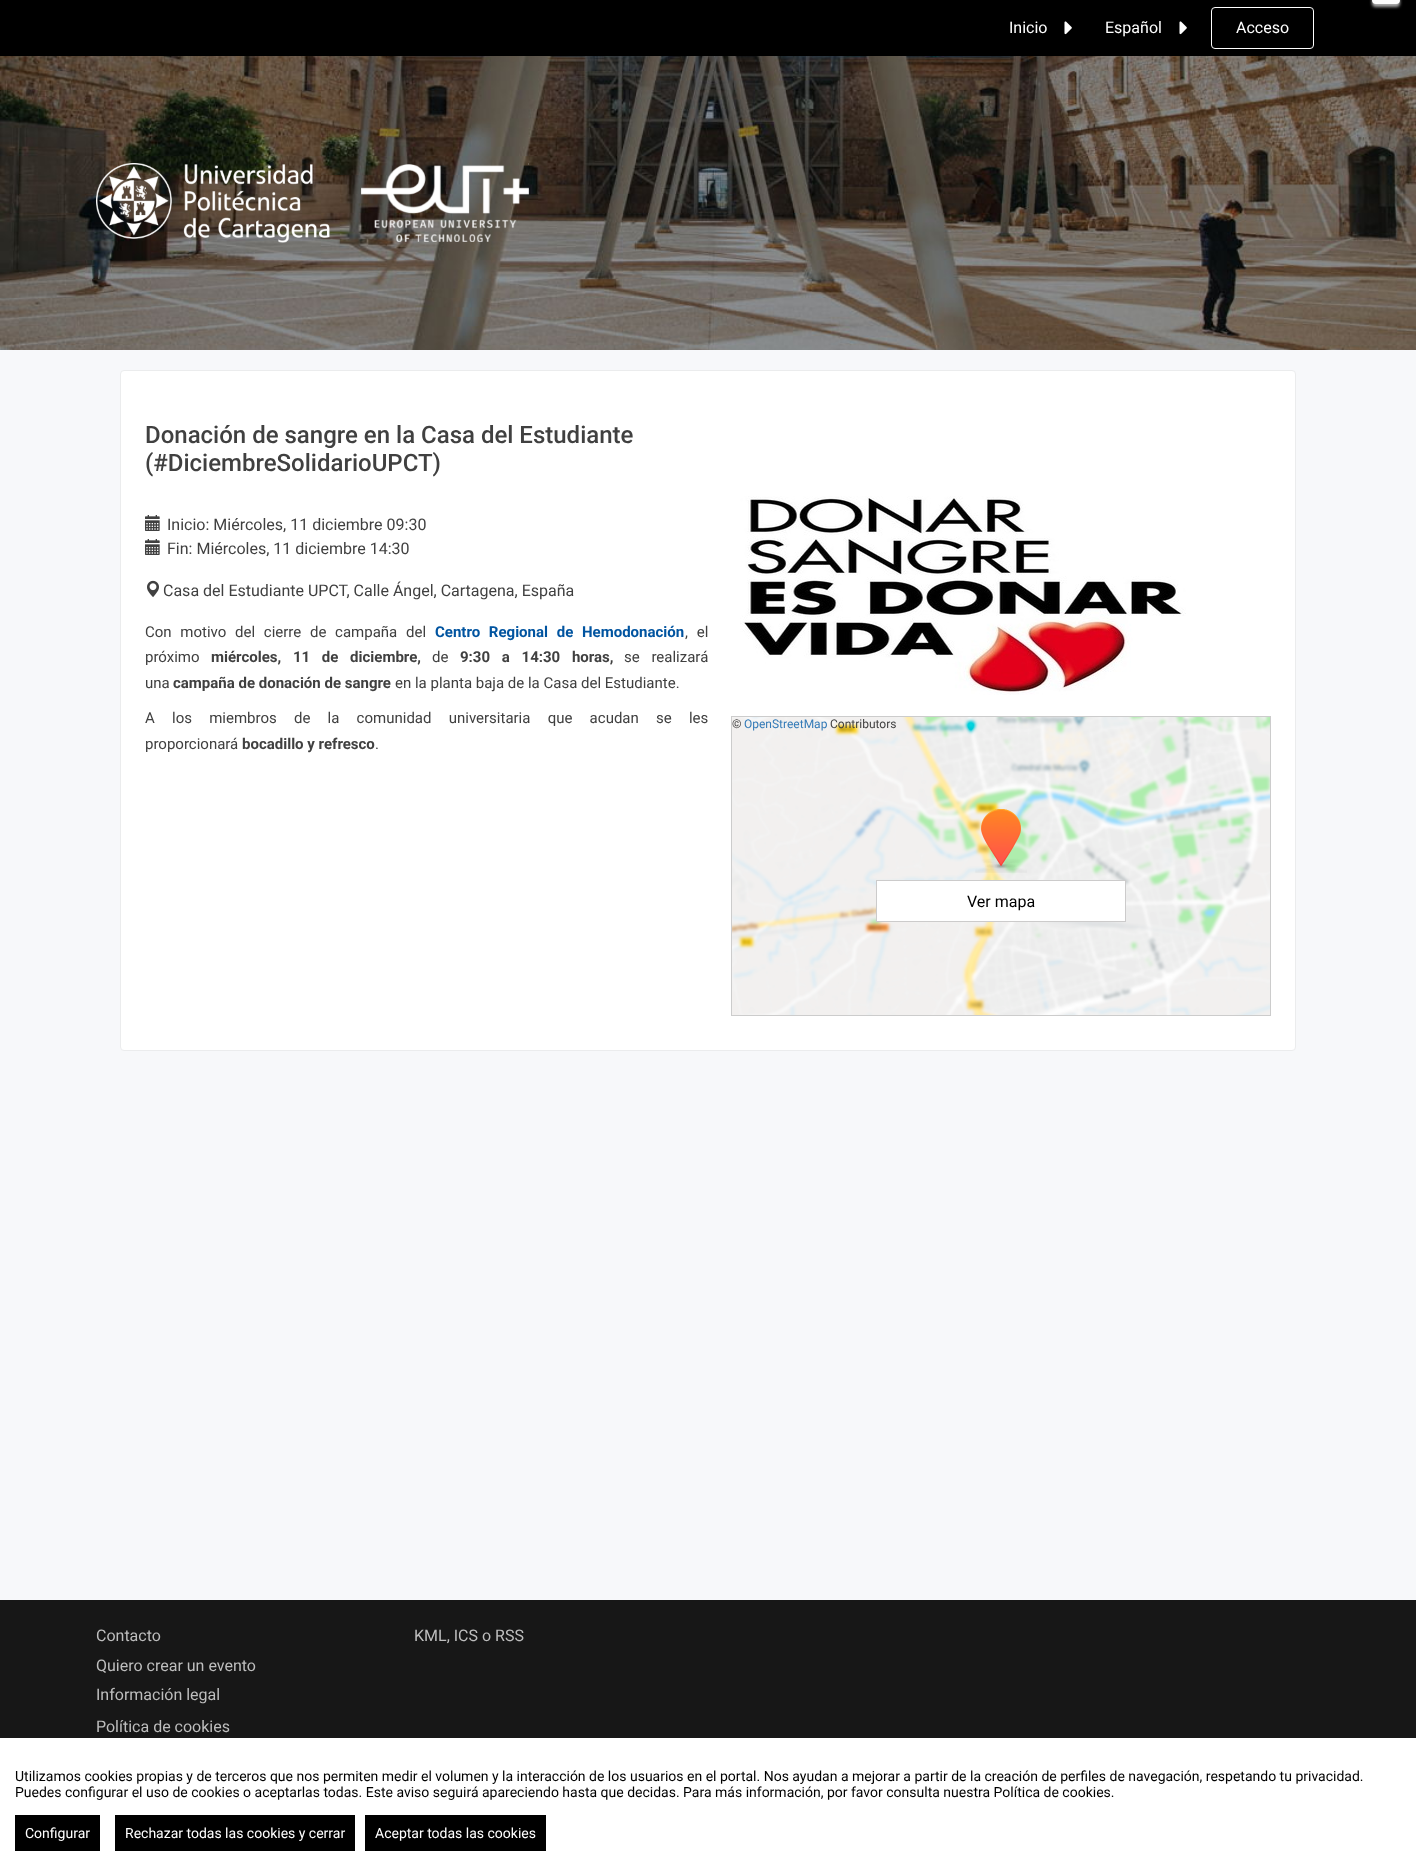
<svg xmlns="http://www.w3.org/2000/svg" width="1416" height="1866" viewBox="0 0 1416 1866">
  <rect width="100%" height="100%" fill="rgb(23,23,23)"/>
  <rect x="0" y="0" width="1416" height="56" fill="rgb(0,0,0)"/>
  <rect x="1372" y="-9" width="28" height="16" rx="4" fill="rgb(170,170,170)" filter="blur(1.5px)"/>
  <rect x="1372" y="-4" width="28" height="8" rx="4" fill="rgb(252,252,252)"/>
  <image x="0" y="56" width="1416" height="294" href="pic1.png"/>
  <text x="1009" y="33" font-family="Roboto" font-size="16" fill="rgb(255,255,255)">Inicio</text>
  <image x="1064" y="21" width="8" height="14" href="pic2.png"/>
  <text x="1105" y="33" font-family="Roboto" font-size="16" fill="rgb(255,255,255)">Español</text>
  <image x="1179" y="21" width="8" height="14" href="pic2.png"/>
  <rect x="1211.5" y="7.5" width="102" height="41" rx="3.5" fill="none" stroke="rgb(255,255,255)"/>
  <text x="1236" y="33" font-family="Roboto" font-size="16" fill="rgb(255,255,255)">Acceso</text>
  <image x="96" y="163" width="433" height="80" href="pic3.png"/>
  <rect x="0" y="350" width="1416" height="1250" fill="rgb(247,248,250)"/>
  <rect x="120.5" y="370.5" width="1175" height="680" rx="3.5" fill="rgb(255,255,255)" stroke="rgb(235,236,237)"/>
  <g font-family="Roboto" font-size="24" font-weight="500" fill="rgb(64,64,64)">
    <text>
      <tspan x="145" y="443">Donación de sangre en la Casa del Estudiante</tspan>
      <tspan x="145" y="471">(#DiciembreSolidarioUPCT)</tspan>
    </text>
  </g>
  <image x="145" y="515" width="15" height="16" href="pic4.png"/>
  <text x="167" y="530" font-family="Roboto" font-size="16" fill="rgb(64,64,64)">Inicio: Miércoles, 11 diciembre 09:30</text>
  <image x="145" y="539" width="15" height="16" href="pic4.png"/>
  <text x="167" y="554" font-family="Roboto" font-size="16" fill="rgb(64,64,64)">Fin: Miércoles, 11 diciembre 14:30</text>
  <image x="740" y="496" width="446" height="199" href="pic5.png"/>
  <image x="147" y="580" width="12" height="18" href="pic6.png"/>
  <text x="163" y="596" font-family="Roboto" font-size="16" fill="rgb(64,64,64)">Casa del Estudiante UPCT, Calle Ángel, Cartagena, España</text>
  <text x="145" y="637" word-spacing="5" font-family="Roboto" font-size="15" fill="rgb(64,64,64)">Con motivo del cierre de campaña del</text>
  <text x="435" y="637" word-spacing="5" font-family="Roboto" font-size="15" font-weight="bold" fill="rgb(1,84,160)">Centro Regional de Hemodonación</text>
  <g font-family="Roboto" font-size="15" fill="rgb(64,64,64)">
    <text x="685" y="637" word-spacing="5">, el</text>
    <text x="145" y="662">próximo</text>
  </g>
  <text x="211" y="662" word-spacing="8" font-family="Roboto" font-size="15" font-weight="bold" fill="rgb(64,64,64)">miércoles, 11 de diciembre,</text>
  <text x="432" y="662" font-family="Roboto" font-size="15" fill="rgb(64,64,64)">de</text>
  <text x="460" y="662" word-spacing="8" font-family="Roboto" font-size="15" font-weight="bold" fill="rgb(64,64,64)">9:30 a 14:30 horas,</text>
  <g font-family="Roboto" font-size="15" fill="rgb(64,64,64)">
    <text x="624" y="662" word-spacing="8">se realizará</text>
    <text x="145" y="688">una</text>
  </g>
  <text x="173" y="688" font-family="Roboto" font-size="15" font-weight="bold" fill="rgb(64,64,64)">campaña de donación de sangre</text>
  <g font-family="Roboto" font-size="15" fill="rgb(64,64,64)">
    <text x="395" y="688">en la planta baja de la Casa del Estudiante.</text>
    <text>
      <tspan x="145" y="723" word-spacing="13.5">A los miembros de la comunidad universitaria que acudan se les</tspan>
      <tspan x="145" y="749">proporcionará</tspan>
    </text>
  </g>
  <text x="242" y="749" font-family="Roboto" font-size="15" font-weight="bold" fill="rgb(64,64,64)">bocadillo y refresco</text>
  <text x="375" y="749" font-family="Roboto" font-size="15" fill="rgb(64,64,64)">.</text>
  <image x="732" y="717" width="538" height="298" href="pic7.png"/>
  <rect x="731.5" y="716.5" width="539" height="299" fill="none" stroke="rgb(204,204,204)"/>
  <text x="732" y="728" font-family="Roboto" font-size="12" fill="rgb(64,64,64)">©</text>
  <text x="744" y="728" font-family="Roboto" font-size="12" fill="rgb(51,122,183)">OpenStreetMap</text>
  <text x="830" y="728" font-family="Roboto" font-size="12" fill="rgb(64,64,64)">Contributors</text>
  <image x="975" y="809" width="52" height="64" href="pic8.png"/>
  <rect x="876.5" y="880.5" width="249" height="41" fill="rgb(255,255,255)" stroke="rgb(204,203,203)"/>
  <text x="967" y="907" font-family="Roboto" font-size="16" fill="rgb(0,0,0)">Ver mapa</text>
  <g font-family="Roboto" font-size="16" fill="rgb(190,190,190)">
    <text>
      <tspan x="96" y="1641">Contacto</tspan>
      <tspan x="96" y="1671">Quiero crear un evento</tspan>
      <tspan x="96" y="1700">Información legal</tspan>
    </text>
    <text x="96" y="1732">Política de cookies</text>
    <text x="414" y="1641">KML, ICS o RSS</text>
  </g>
  <rect x="0" y="1738" width="1416" height="128" fill="rgb(255,255,255)"/>
  <g font-family="Roboto" font-size="14" fill="rgb(0,0,0)">
    <text>
      <tspan x="15" y="1781">Utilizamos cookies propias y de terceros que nos permiten medir el volumen y la interacción de los usuarios en el portal. Nos ayudan a mejorar a partir de la creación de perfiles de navegación, respetando tu privacidad.</tspan>
      <tspan x="15" y="1797">Puedes configurar el uso de cookies o aceptarlas todas. Este aviso seguirá apareciendo hasta que decidas. Para más información, por favor consulta nuestra Política de cookies.</tspan>
    </text>
  </g>
  <rect x="15" y="1815" width="85" height="36" fill="rgb(0,0,0)"/>
  <text x="25" y="1838" font-family="Roboto" font-size="14" fill="rgb(255,255,255)">Configurar</text>
  <rect x="115" y="1815" width="240" height="36" fill="rgb(0,0,0)"/>
  <text x="125" y="1838" font-family="Roboto" font-size="14" fill="rgb(255,255,255)">Rechazar todas las cookies y cerrar</text>
  <rect x="365" y="1815" width="181" height="36" fill="rgb(0,0,0)"/>
  <text x="375" y="1838" font-family="Roboto" font-size="14" fill="rgb(255,255,255)">Aceptar todas las cookies</text>
</svg>
